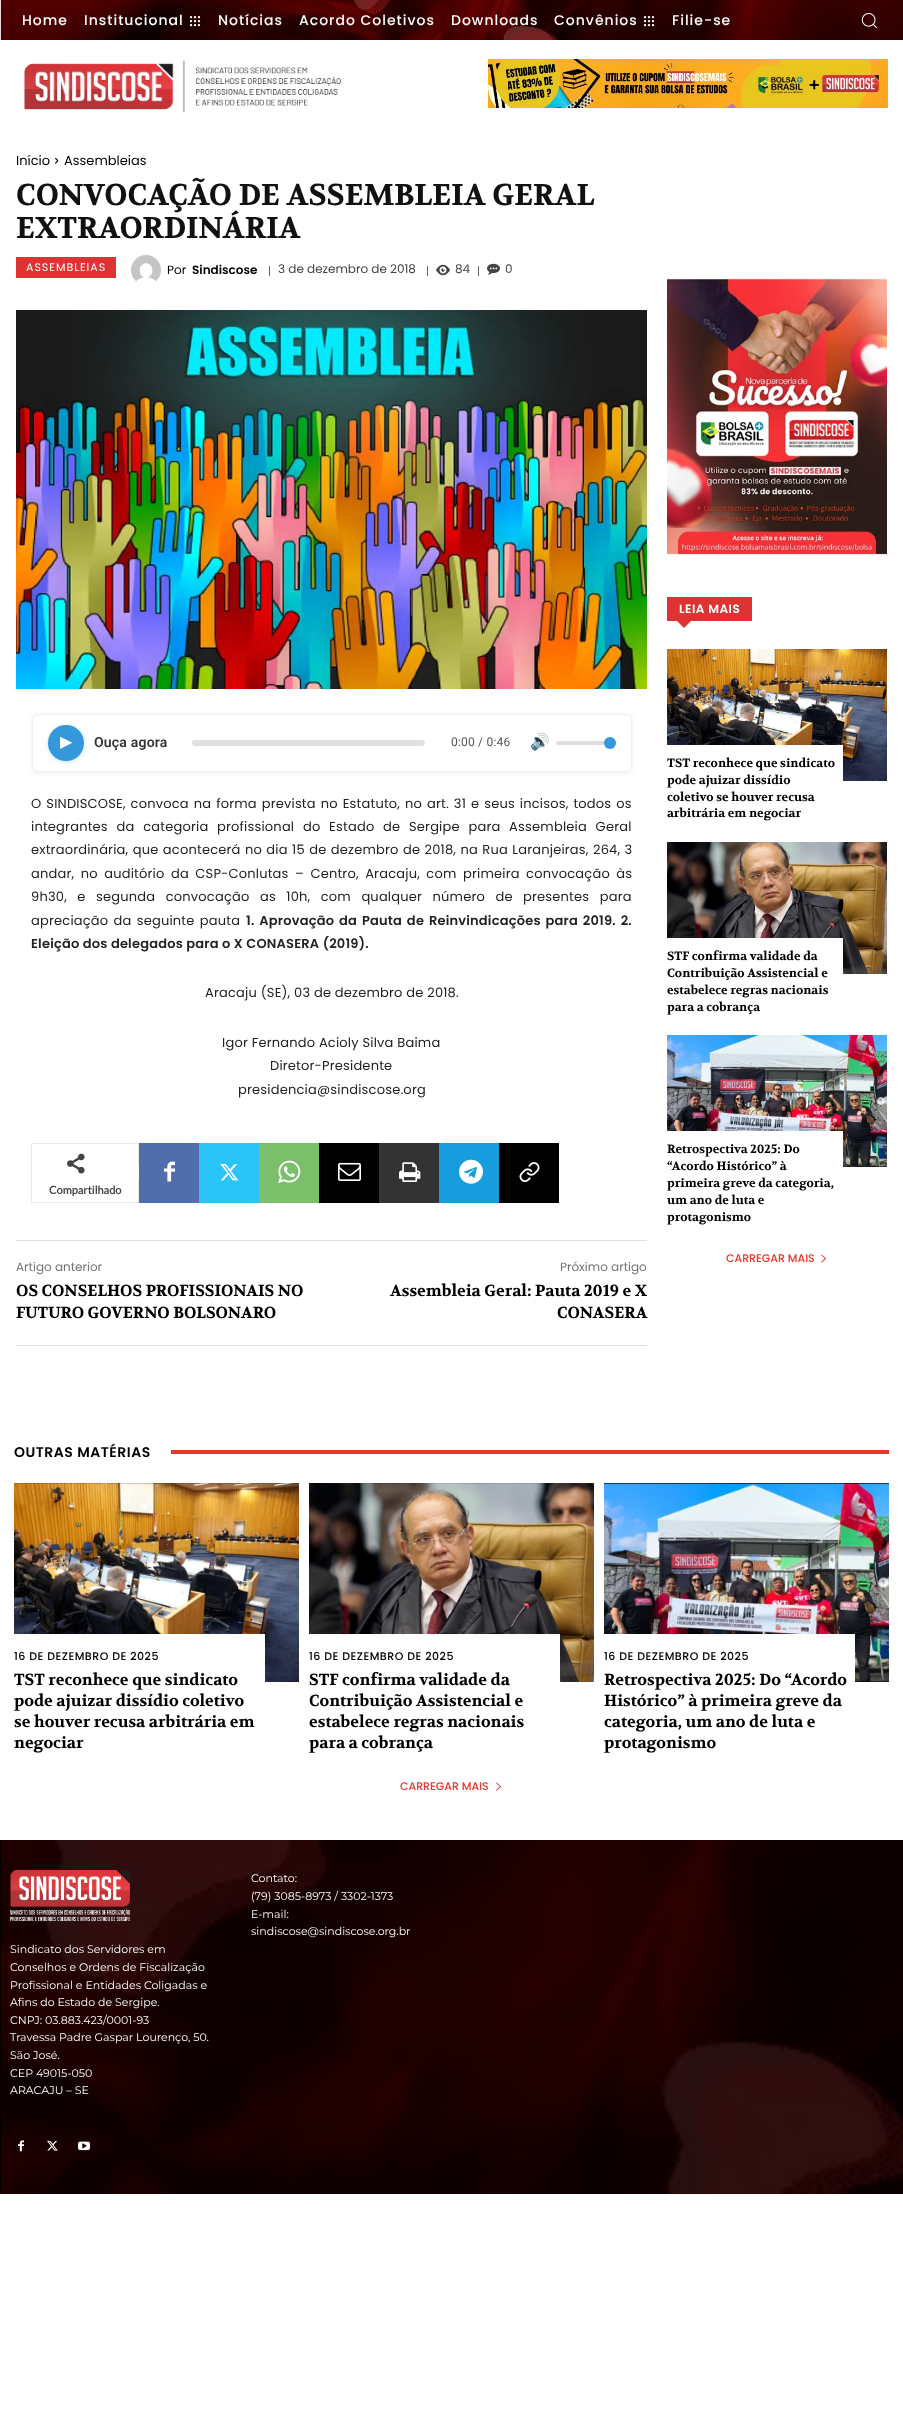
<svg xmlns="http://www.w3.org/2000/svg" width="903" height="2430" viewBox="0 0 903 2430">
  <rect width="100%" height="100%" fill="rgb(255,255,255)"/>
  <rect x="1" y="0" width="902" height="40" fill="rgb(0,0,0)"/>
  <image x="0" y="0" width="903" height="40" href="pic1.png"/>
  <g font-family="Poppins" font-size="14" font-weight="500" letter-spacing="1" fill="rgb(255,255,255)">
    <text x="22" y="25">Home</text>
    <text x="84" y="25">Institucional</text>
  </g>
  <image x="189" y="16" width="12" height="11" href="pic2.png"/>
  <g font-family="Poppins" font-size="14" font-weight="500" letter-spacing="1" fill="rgb(255,255,255)">
    <text x="218" y="25">Notícias</text>
    <text x="299" y="25">Acordo Coletivos</text>
    <text x="451" y="25">Downloads</text>
    <text x="554" y="25">Convênios</text>
  </g>
  <image x="643" y="16" width="12" height="11" href="pic3.png"/>
  <text x="672" y="25" font-family="Poppins" font-size="14" font-weight="500" letter-spacing="1" fill="rgb(255,255,255)">Filie-se</text>
  <image x="861" y="13" width="16" height="15" href="pic4.png"/>
  <image x="24" y="60" width="317" height="53" href="pic5.png"/>
  <image x="488" y="59" width="400" height="49" href="pic6.png"/>
  <text x="16" y="165" font-family="Poppins" font-size="13" fill="rgb(0,0,0)">Início</text>
  <image x="55" y="157" width="4" height="7" href="pic7.png"/>
  <text x="64" y="165" font-family="Poppins" font-size="13" fill="rgb(0,0,0)">Assembleias</text>
  <g font-family="Volkhov" font-size="30" font-weight="bold" fill="rgb(17,17,17)">
    <text>
      <tspan x="16" y="205">CONVOCAÇÃO DE ASSEMBLEIA GERAL</tspan>
      <tspan x="16" y="238">EXTRAORDINÁRIA</tspan>
    </text>
  </g>
  <rect x="16" y="257" width="100" height="21" fill="rgb(221,51,51)"/>
  <text x="26" y="271" font-family="Poppins" font-size="11" letter-spacing="1" fill="rgb(255,255,255)">ASSEMBLEIAS</text>
  <image x="131" y="255" width="30" height="27" href="pic8.png"/>
  <text x="167" y="274" font-family="Poppins" font-size="12" fill="rgb(0,0,0)">Por</text>
  <text x="192" y="274" font-family="Poppins" font-size="12" font-weight="600" fill="rgb(0,0,0)">Sindiscose</text>
  <rect x="269" y="266" width="1" height="10" fill="rgb(102,102,102)"/>
  <text x="278" y="273" font-family="Poppins" font-size="12" fill="rgb(68,68,68)">3 de dezembro de 2018</text>
  <rect x="427" y="266" width="1" height="10" fill="rgb(102,102,102)"/>
  <image x="436" y="264" width="14" height="12" href="pic9.png"/>
  <text x="455" y="273" font-family="Poppins" font-size="12" fill="rgb(68,68,68)">84</text>
  <rect x="478" y="266" width="1" height="10" fill="rgb(102,102,102)"/>
  <image x="487" y="263" width="13" height="12" href="pic10.png"/>
  <text x="505" y="273" font-family="Poppins" font-size="12" fill="rgb(68,68,68)">0</text>
  <image x="16" y="310" width="631" height="379" href="pic11.png"/>
  <rect x="32" y="715" width="600" height="58" rx="6" fill="rgba(0,0,0,0.07)" filter="blur(2.5px)"/>
  <rect x="32.5" y="714.5" width="599" height="57" rx="5.5" fill="rgb(255,255,255)" stroke="rgb(240,240,240)"/>
  <rect x="48" y="726" width="36" height="36" rx="18" fill="rgba(52,152,219,0.3)" filter="blur(2px)"/>
  <circle cx="66" cy="743" r="18" fill="rgb(52,152,219)"/>
  <text x="60" y="747" font-family="DejaVu Sans" font-size="16" fill="rgb(255,255,255)">▶</text>
  <text x="94" y="747" font-family="Roboto" font-size="14" font-weight="600" letter-spacing="0.2" fill="rgb(51,51,51)">Ouça agora</text>
  <rect x="192" y="740" width="233" height="6" rx="3" fill="rgb(224,224,224)"/>
  <text x="451" y="746" font-family="Roboto" font-size="12" letter-spacing="0.2" fill="rgb(85,85,85)">0:00 / 0:46</text>
  <text x="530" y="747" font-family="Noto Color Emoji" font-size="16" letter-spacing="0.2" fill="rgb(85,85,85)">🔊</text>
  <rect x="556" y="741" width="60" height="4" rx="2" fill="rgb(221,221,221)"/>
  <circle cx="610" cy="743" r="6" fill="rgb(52,152,219)"/>
  <g font-family="Poppins" font-size="13" letter-spacing="0.2" fill="rgb(34,34,34)">
    <text>
      <tspan x="31" y="808" word-spacing="1.25">O SINDISCOSE, convoca na forma prevista no Estatuto, no art. 31 e seus incisos, todos os</tspan>
      <tspan x="31" y="831" word-spacing="5">integrantes da categoria profissional do Estado de Sergipe para Assembleia Geral</tspan>
      <tspan x="31" y="854" word-spacing="0.7">extraordinária, que acontecerá no dia 15 de dezembro de 2018, na Rua Laranjeiras, 264, 3</tspan>
      <tspan x="31" y="878" word-spacing="2.75">andar, no auditório da CSP-Conlutas – Centro, Aracaju, com primeira convocação às</tspan>
      <tspan x="31" y="901" word-spacing="6.75">9h30, e segunda convocação as 10h, com qualquer número de presentes para</tspan>
      <tspan x="31" y="925" word-spacing="1.5">apreciação da seguinte pauta</tspan>
    </text>
  </g>
  <g font-family="Poppins" font-size="13" font-weight="600" letter-spacing="0.2" fill="rgb(34,34,34)">
    <text x="246" y="925" word-spacing="1.5">1. Aprovação da Pauta de Reinvindicações para 2019. 2.</text>
    <text x="31" y="948">Eleição dos delegados para o X CONASERA (2019).</text>
  </g>
  <g font-family="Poppins" font-size="13" letter-spacing="0.2" fill="rgb(34,34,34)">
    <text x="205" y="997">Aracaju (SE), 03 de dezembro de 2018.</text>
    <text x="222" y="1047">Igor Fernando Acioly Silva Baima</text>
    <text x="270" y="1070">Diretor-Presidente</text>
    <text x="238" y="1094">presidencia@sindiscose.org</text>
  </g>
  <rect x="31.5" y="1143.5" width="107" height="59" fill="none" stroke="rgb(233,233,233)"/>
  <image x="67" y="1153" width="18" height="21" href="pic12.png"/>
  <path d="M138 1182V1164L149 1173Z" fill="rgb(233,233,233)"/>
  <path d="M138 1181V1165L148 1173Z" fill="rgb(255,255,255)"/>
  <text x="49" y="1194" font-family="Lato" font-size="11" font-weight="bold" fill="rgb(68,68,68)">Compartilhado</text>
  <rect x="139" y="1143" width="60" height="60" fill="rgb(81,110,171)"/>
  <image x="164" y="1161" width="11" height="21" href="pic13.png"/>
  <rect x="199" y="1143" width="60" height="60" fill="rgb(41,197,246)"/>
  <image x="220" y="1164" width="19" height="17" href="pic14.png"/>
  <rect x="259" y="1143" width="60" height="60" fill="rgb(123,191,106)"/>
  <image x="278" y="1160" width="23" height="23" href="pic15.png"/>
  <rect x="319" y="1143" width="60" height="60" fill="rgb(0,0,0)"/>
  <image x="338" y="1162" width="23" height="19" href="pic16.png"/>
  <rect x="379" y="1143" width="60" height="60" fill="rgb(51,51,51)"/>
  <image x="399" y="1162" width="22" height="20" href="pic17.png"/>
  <rect x="439" y="1143" width="60" height="60" fill="rgb(23,156,222)"/>
  <image x="459" y="1159" width="24" height="25" href="pic18.png"/>
  <rect x="499" y="1143" width="60" height="60" fill="rgb(0,0,0)"/>
  <image x="519" y="1162" width="21" height="20" href="pic19.png"/>
  <rect x="16" y="1240" width="631" height="1" fill="rgb(224,224,224)"/>
  <rect x="16" y="1345" width="631" height="1" fill="rgb(224,224,224)"/>
  <text x="16" y="1271" font-family="Poppins" font-size="12" fill="rgb(116,116,116)">Artigo anterior</text>
  <g font-family="Volkhov" font-size="16" font-weight="bold" fill="rgb(0,0,0)">
    <text>
      <tspan x="16" y="1296">OS CONSELHOS PROFISSIONAIS NO</tspan>
      <tspan x="16" y="1318">FUTURO GOVERNO BOLSONARO</tspan>
    </text>
  </g>
  <text x="560" y="1271" font-family="Poppins" font-size="12" fill="rgb(116,116,116)">Próximo artigo</text>
  <g font-family="Volkhov" font-size="16" font-weight="bold" fill="rgb(0,0,0)">
    <text x="390" y="1296">Assembleia Geral: Pauta 2019 e X</text>
    <text x="557" y="1318">CONASERA</text>
  </g>
  <image x="667" y="277" width="220" height="279" href="pic20.png"/>
  <rect x="667" y="597" width="85" height="24" fill="rgb(221,51,51)"/>
  <text x="679" y="613" font-family="Poppins" font-size="12" font-weight="600" letter-spacing="0.5" fill="rgb(255,255,255)">LEIA MAIS</text>
  <path d="M677 621H691L684 628Z" fill="rgb(221,51,51)"/>
  <image x="667" y="649" width="220" height="132" href="pic21.png"/>
  <rect x="667" y="745" width="176" height="36" fill="rgb(255,255,255)"/>
  <g font-family="Volkhov" font-size="12" font-weight="bold" fill="rgb(0,0,0)">
    <text>
      <tspan x="667" y="767">TST reconhece que sindicato</tspan>
      <tspan x="667" y="784">pode ajuizar dissídio</tspan>
      <tspan x="667" y="801">coletivo se houver recusa</tspan>
      <tspan x="667" y="817">arbitrária em negociar</tspan>
    </text>
  </g>
  <image x="667" y="842" width="220" height="132" href="pic22.png"/>
  <rect x="667" y="938" width="176" height="36" fill="rgb(255,255,255)"/>
  <g font-family="Volkhov" font-size="12" font-weight="bold" fill="rgb(0,0,0)">
    <text>
      <tspan x="667" y="960">STF confirma validade da</tspan>
      <tspan x="667" y="977">Contribuição Assistencial e</tspan>
      <tspan x="667" y="994">estabelece regras nacionais</tspan>
      <tspan x="667" y="1011">para a cobrança</tspan>
    </text>
  </g>
  <image x="667" y="1035" width="220" height="132" href="pic23.png"/>
  <rect x="667" y="1131" width="176" height="36" fill="rgb(255,255,255)"/>
  <g font-family="Volkhov" font-size="12" font-weight="bold" fill="rgb(0,0,0)">
    <text>
      <tspan x="667" y="1153">Retrospectiva 2025: Do</tspan>
      <tspan x="667" y="1170">“Acordo Histórico” à</tspan>
      <tspan x="667" y="1187">primeira greve da categoria,</tspan>
      <tspan x="667" y="1204">um ano de luta e</tspan>
      <tspan x="667" y="1221">protagonismo</tspan>
    </text>
  </g>
  <text x="726" y="1262" font-family="Poppins" font-size="11" font-weight="500" fill="rgb(227,56,43)">CARREGAR MAIS</text>
  <image x="821" y="1254" width="6" height="9" href="pic24.png"/>
  <text x="14" y="1457" font-family="Poppins" font-size="14" font-weight="600" letter-spacing="0.5" fill="rgb(0,0,0)">OUTRAS MATÉRIAS</text>
  <rect x="171" y="1450" width="718" height="4" fill="rgb(227,56,43)"/>
  <image x="14" y="1483" width="285" height="199" href="pic25.png"/>
  <rect x="14" y="1634" width="251" height="48" fill="rgb(255,255,255)"/>
  <text x="14" y="1660" font-family="Poppins" font-size="11" font-weight="500" letter-spacing="0.5" fill="rgb(0,0,0)">16 DE DEZEMBRO DE 2025</text>
  <g font-family="Volkhov" font-size="16" font-weight="bold" fill="rgb(0,0,0)">
    <text>
      <tspan x="14" y="1685">TST reconhece que sindicato</tspan>
      <tspan x="14" y="1706">pode ajuizar dissídio coletivo</tspan>
      <tspan x="14" y="1727">se houver recusa arbitrária em</tspan>
      <tspan x="14" y="1748">negociar</tspan>
    </text>
  </g>
  <image x="309" y="1483" width="285" height="199" href="pic26.png"/>
  <rect x="309" y="1634" width="251" height="48" fill="rgb(255,255,255)"/>
  <text x="309" y="1660" font-family="Poppins" font-size="11" font-weight="500" letter-spacing="0.5" fill="rgb(0,0,0)">16 DE DEZEMBRO DE 2025</text>
  <g font-family="Volkhov" font-size="16" font-weight="bold" fill="rgb(0,0,0)">
    <text>
      <tspan x="309" y="1685">STF confirma validade da</tspan>
      <tspan x="309" y="1706">Contribuição Assistencial e</tspan>
      <tspan x="309" y="1727">estabelece regras nacionais</tspan>
      <tspan x="309" y="1748">para a cobrança</tspan>
    </text>
  </g>
  <image x="604" y="1483" width="285" height="199" href="pic27.png"/>
  <rect x="604" y="1634" width="251" height="48" fill="rgb(255,255,255)"/>
  <text x="604" y="1660" font-family="Poppins" font-size="11" font-weight="500" letter-spacing="0.5" fill="rgb(0,0,0)">16 DE DEZEMBRO DE 2025</text>
  <g font-family="Volkhov" font-size="16" font-weight="bold" fill="rgb(0,0,0)">
    <text>
      <tspan x="604" y="1685">Retrospectiva 2025: Do “Acordo</tspan>
      <tspan x="604" y="1706">Histórico” à primeira greve da</tspan>
      <tspan x="604" y="1727">categoria, um ano de luta e</tspan>
      <tspan x="604" y="1748">protagonismo</tspan>
    </text>
  </g>
  <text x="400" y="1790" font-family="Poppins" font-size="11" font-weight="500" fill="rgb(227,56,43)">CARREGAR MAIS</text>
  <image x="496" y="1782" width="6" height="9" href="pic24.png"/>
  <rect x="0" y="1840" width="903" height="354" fill="rgb(0,0,0)"/>
  <image x="0" y="1840" width="903" height="354" href="pic28.png"/>
  <g font-family="Montserrat" font-size="11" font-weight="100" fill="rgb(255,255,255)">
    <text>
      <tspan x="251" y="1882">Contato:</tspan>
      <tspan x="251" y="1900">(79) 3085-8973 / 3302-1373</tspan>
      <tspan x="251" y="1918">E-mail:</tspan>
      <tspan x="251" y="1935">sindiscose@sindiscose.org.br</tspan>
    </text>
  </g>
  <image x="10" y="1870" width="120" height="51" href="pic29.png"/>
  <g font-family="Montserrat" font-size="11" font-weight="100" fill="rgb(255,255,255)">
    <text>
      <tspan x="10" y="1953">Sindicato dos Servidores em</tspan>
      <tspan x="10" y="1971">Conselhos e Ordens de Fiscalização</tspan>
      <tspan x="10" y="1989">Profissional e Entidades Coligadas e</tspan>
      <tspan x="10" y="2006">Afins do Estado de Sergipe.</tspan>
      <tspan x="10" y="2024">CNPJ: 03.883.423/0001-93</tspan>
      <tspan x="10" y="2041">Travessa Padre Gaspar Lourenço, 50.</tspan>
      <tspan x="10" y="2059">São José.</tspan>
      <tspan x="10" y="2077">CEP 49015-050</tspan>
      <tspan x="10" y="2094">ARACAJU – SE</tspan>
    </text>
  </g>
  <image x="18" y="2140" width="6" height="12" href="pic30.png"/>
  <image x="47" y="2140" width="11" height="11" href="pic31.png"/>
  <image x="78" y="2141" width="12" height="10" href="pic32.png"/>
</svg>
